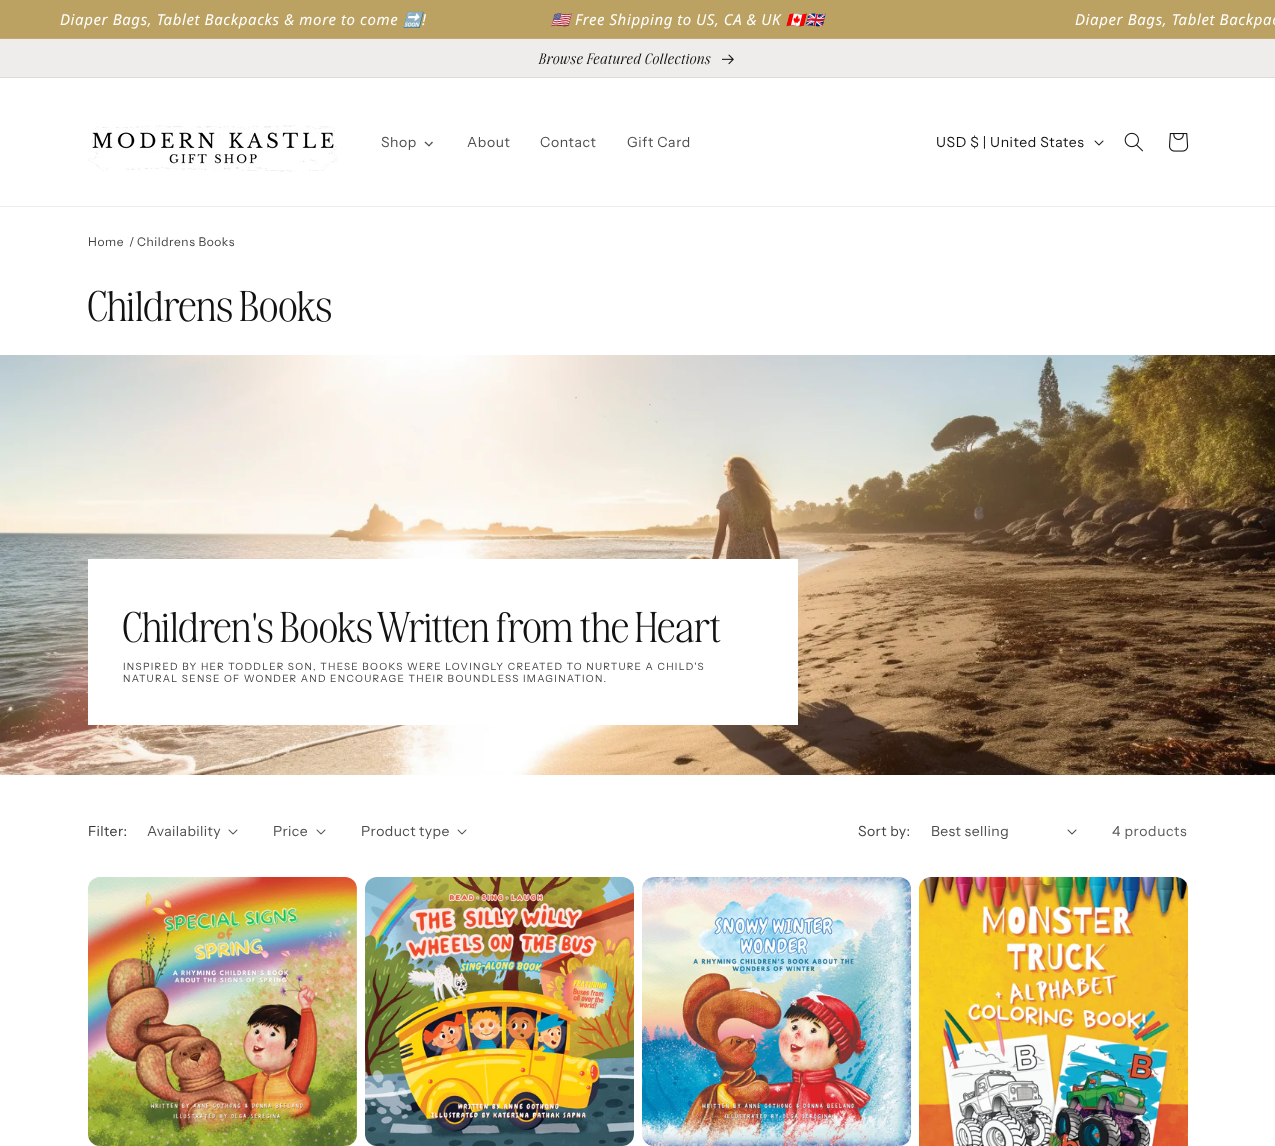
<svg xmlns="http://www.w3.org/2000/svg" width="1275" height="1146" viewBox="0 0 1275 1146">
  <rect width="100%" height="100%" fill="rgb(255,255,255)"/>
  <rect x="0" y="0" width="1275" height="38" fill="rgb(188,162,98)"/>
  <rect x="0" y="38" width="1275" height="1" fill="rgb(193,169,111)"/>
  <text x="60" y="25" font-family="Noto Sans" font-size="15" font-style="italic" letter-spacing="0.6" fill="rgb(255,255,255)">Diaper Bags, Tablet Backpacks &amp; more to come</text>
  <text x="403" y="25" font-family="Noto Color Emoji" font-size="15" font-style="italic" letter-spacing="0.6" fill="rgb(255,255,255)">🔜</text>
  <text x="422" y="25" font-family="Noto Sans" font-size="15" font-style="italic" letter-spacing="0.6" fill="rgb(255,255,255)">!</text>
  <text x="551" y="25" font-family="Noto Color Emoji" font-size="15" font-style="italic" letter-spacing="0.6" fill="rgb(255,255,255)">🇺🇸</text>
  <text x="575" y="25" word-spacing="-0.25" font-family="Noto Sans" font-size="15" font-style="italic" letter-spacing="0.6" fill="rgb(255,255,255)">Free Shipping to US, CA &amp; UK</text>
  <text x="786" y="25" font-family="Noto Color Emoji" font-size="15" font-style="italic" letter-spacing="0.6" fill="rgb(255,255,255)">🇨🇦🇬🇧</text>
  <text x="1075" y="25" font-family="Noto Sans" font-size="15" font-style="italic" letter-spacing="0.6" fill="rgb(255,255,255)">Diaper Bags, Tablet Backpac</text>
  <rect x="0" y="39" width="1275" height="38" fill="rgb(239,237,235)"/>
  <rect x="0" y="77" width="1275" height="1" fill="rgb(221,219,218)"/>
  <image x="538" y="53" width="173" height="12" href="pic1.png"/>
  <image x="722" y="54" width="12" height="11" href="pic2.png"/>
  <rect x="0" y="206" width="1275" height="1" fill="rgb(236,236,236)"/>
  <image x="88" y="125" width="250" height="47" href="pic3.png"/>
  <text x="381" y="147" font-family="Instrument Sans" font-size="14" letter-spacing="0.6" fill="rgb(77,77,77)">Shop</text>
  <path d="M432 141.5L433 142.5L429 146.5L428.5 145.5Z" fill="rgb(77,77,77)"/>
  <path d="M425.5 141.5L429.5 145.5L429 146.5L424.5 142.5Z" fill="rgba(18,18,18,0.75)"/>
  <g font-family="Instrument Sans" font-size="14" letter-spacing="0.6" fill="rgb(77,77,77)">
    <text x="467" y="147">About</text>
    <text x="540" y="147">Contact</text>
    <text x="627" y="147">Gift Card</text>
  </g>
  <text x="936" y="147" font-family="Instrument Sans" font-size="14" letter-spacing="0.6" fill="rgb(18,18,18)">USD $ | United States</text>
  <image x="1094" y="140" width="10" height="6" href="pic4.png"/>
  <image x="1124" y="132" width="19" height="20" href="pic5.png"/>
  <image x="1169" y="133" width="20" height="19" href="pic6.png"/>
  <g font-family="Instrument Sans" font-size="12" letter-spacing="0.6" fill="rgb(65,65,65)">
    <text x="88" y="246">Home</text>
    <text x="129" y="246">/</text>
    <text x="137" y="246">Childrens Books</text>
  </g>
  <image x="88" y="290" width="243" height="32" href="pic7.png"/>
  <image x="0" y="355" width="1275" height="420" href="pic8.png"/>
  <rect x="88" y="559" width="710" height="166" fill="rgb(255,255,255)"/>
  <image x="123" y="611" width="598" height="32" href="pic9.png"/>
  <g font-family="Instrument Sans" font-size="10" letter-spacing="1.3" fill="rgb(65,65,65)">
    <text>
      <tspan x="123" y="670">INSPIRED BY HER TODDLER SON, THESE BOOKS WERE LOVINGLY CREATED TO NURTURE A CHILD'S</tspan>
      <tspan x="123" y="682">NATURAL SENSE OF WONDER AND ENCOURAGE THEIR BOUNDLESS IMAGINATION.</tspan>
    </text>
  </g>
  <text x="88" y="836" font-family="Instrument Sans" font-size="14" letter-spacing="0.4" fill="rgb(54,54,54)">Filter:</text>
  <text x="147" y="836" font-family="Instrument Sans" font-size="14" letter-spacing="0.4" fill="rgb(77,77,77)">Availability</text>
  <image x="228" y="829" width="10" height="6" href="pic10.png"/>
  <text x="273" y="836" font-family="Instrument Sans" font-size="14" letter-spacing="0.4" fill="rgb(77,77,77)">Price</text>
  <image x="316" y="829" width="10" height="6" href="pic10.png"/>
  <text x="361" y="836" font-family="Instrument Sans" font-size="14" letter-spacing="0.4" fill="rgb(77,77,77)">Product type</text>
  <image x="457" y="829" width="10" height="6" href="pic10.png"/>
  <text x="858" y="836" font-family="Instrument Sans" font-size="14" letter-spacing="0.4" fill="rgb(65,65,65)">Sort by:</text>
  <text x="931" y="836" font-family="Instrument Sans" font-size="14" letter-spacing="0.4" fill="rgb(77,77,77)">Best selling</text>
  <image x="1067" y="829" width="10" height="6" href="pic11.png"/>
  <text x="1112" y="836" font-family="Instrument Sans" font-size="14" letter-spacing="0.6" fill="rgb(89,89,89)">4 products</text>
  <image x="88" y="877" width="269" height="269" href="pic12.png"/>
  <image x="365" y="877" width="269" height="269" href="pic13.png"/>
  <image x="642" y="877" width="269" height="269" href="pic14.png"/>
  <image x="919" y="877" width="269" height="269" href="pic15.png"/>
</svg>
